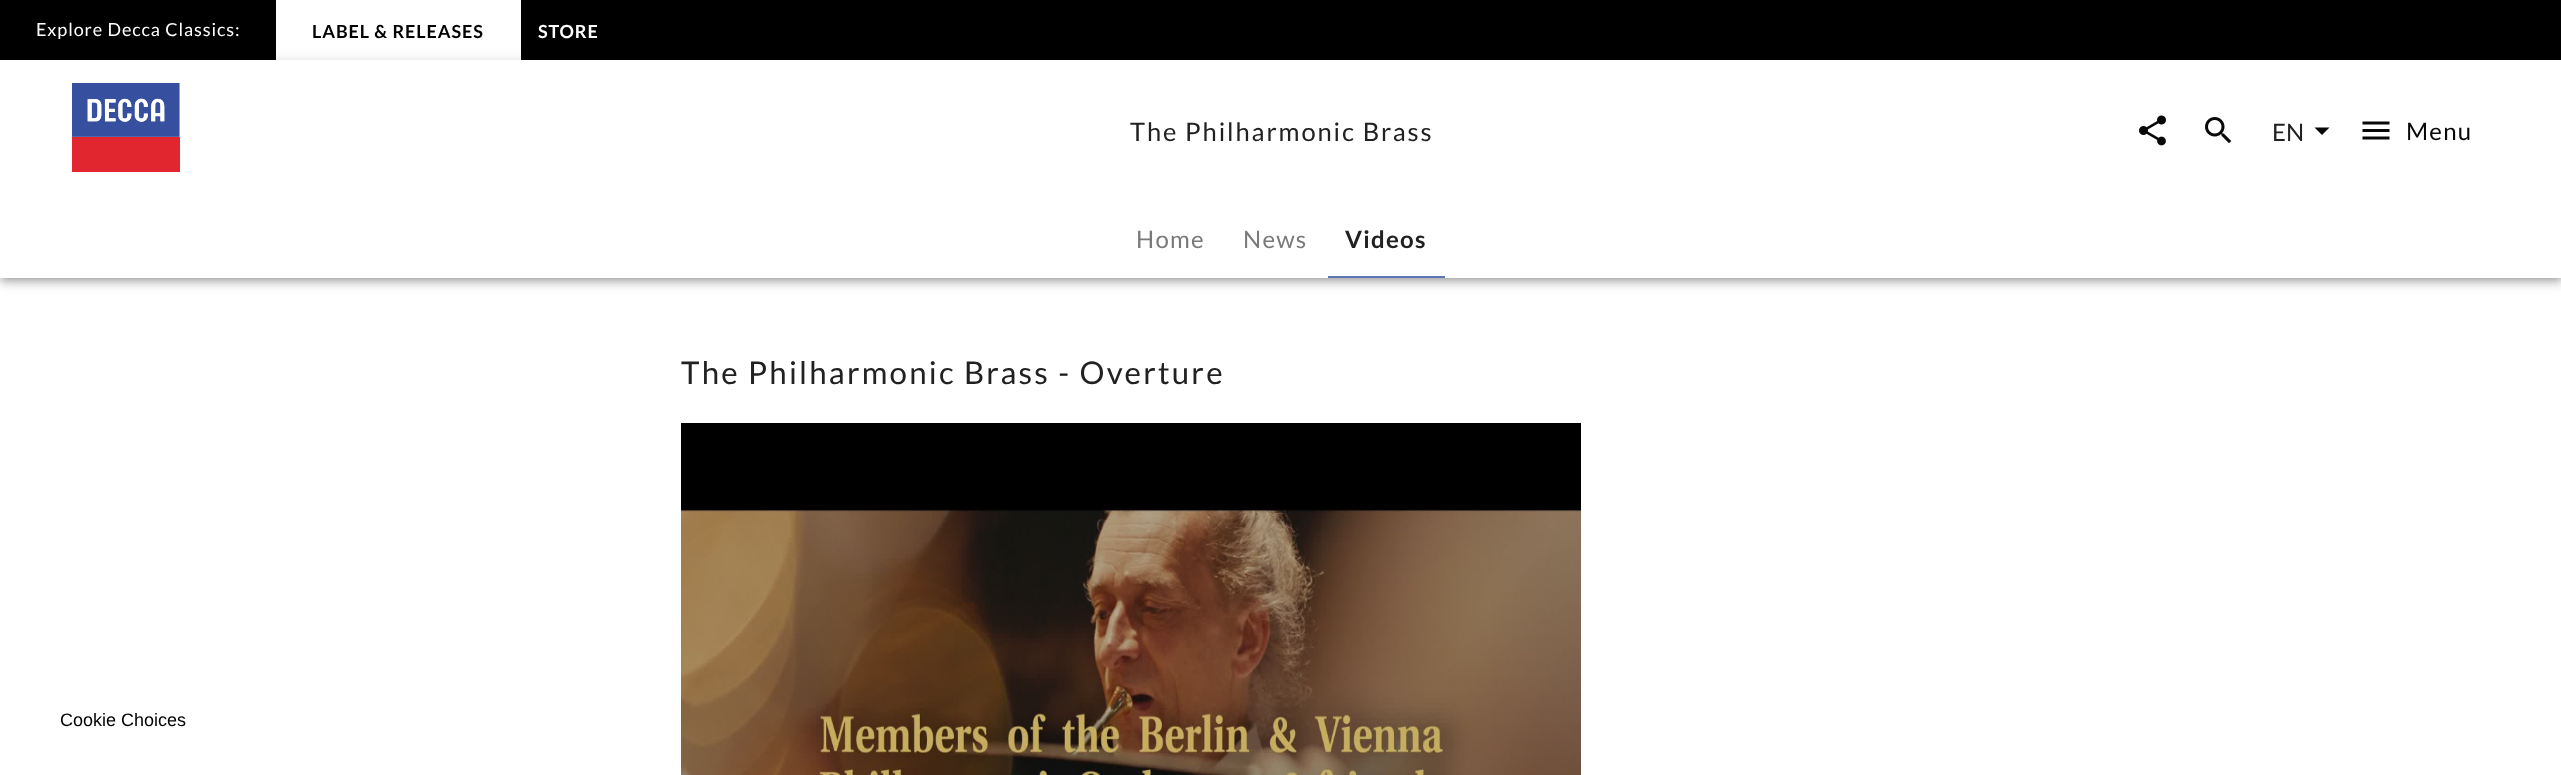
<svg xmlns="http://www.w3.org/2000/svg" width="2561" height="775" viewBox="0 0 2561 775">
  <rect width="100%" height="100%" fill="rgb(255,255,255)"/>
  <rect x="0" y="0" width="2561" height="60" fill="rgb(0,0,0)"/>
  <text x="36" y="36" font-family="Lato" font-size="18" letter-spacing="0.9" fill="rgb(255,255,255)">Explore Decca Classics:</text>
  <rect x="276" y="0" width="245" height="60" fill="rgb(255,255,255)"/>
  <text x="312" y="38" font-family="Lato" font-size="18" font-weight="bold" letter-spacing="0.9" fill="rgb(0,0,0)">LABEL &amp; RELEASES</text>
  <text x="538" y="38" font-family="Lato" font-size="18" font-weight="bold" letter-spacing="0.9" fill="rgb(255,255,255)">STORE</text>
  <rect x="0" y="62" width="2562" height="217" fill="rgba(0,0,0,0.12)" filter="blur(7.5px)"/>
  <rect x="0" y="66" width="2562" height="218" fill="rgba(0,0,0,0.14)" filter="blur(4px)"/>
  <rect x="2" y="65" width="2559" height="214" fill="rgba(0,0,0,0.2)" filter="blur(3px)"/>
  <rect x="0" y="60" width="2561" height="218" fill="rgb(255,255,255)"/>
  <image x="72" y="83" width="108" height="89" href="pic1.png"/>
  <text x="1130" y="141" font-family="Lato" font-size="25.5" letter-spacing="1.9" fill="rgb(33,33,33)">The Philharmonic Brass</text>
  <image x="2139" y="115" width="27" height="31" href="pic2.png"/>
  <image x="2205" y="117" width="27" height="27" href="pic3.png"/>
  <text x="2272" y="141" font-family="Lato" font-size="24" fill="rgb(33,33,33)">EN</text>
  <path d="M2314.5 127.5L2322 135L2329.5 127.5Z" fill="rgb(8,8,8)"/>
  <image x="2362" y="121" width="28" height="19" href="pic4.png"/>
  <text x="2406" y="140" font-family="Lato" font-size="24" letter-spacing="1.25" fill="rgb(8,8,8)">Menu</text>
  <g font-family="Lato" font-size="24" letter-spacing="1.25" fill="rgb(122,122,122)">
    <text x="1136" y="248">Home</text>
    <text x="1243" y="248">News</text>
  </g>
  <text x="1345" y="248" font-family="Lato" font-size="24" font-weight="bold" letter-spacing="1.25" fill="rgb(33,33,33)">Videos</text>
  <rect x="1328" y="276" width="117" height="2" fill="rgb(96,115,179)"/>
  <text x="681" y="384" font-family="Lato" font-size="31.25" letter-spacing="2.2" fill="rgb(33,33,33)">The Philharmonic Brass - Overture</text>
  <rect x="681" y="423" width="900" height="84" fill="rgb(0,0,0)"/>
  <image x="681" y="507" width="900" height="268" href="pic5.png"/>
  <text x="60" y="726" font-family="Liberation Sans" font-size="18" fill="rgb(0,0,0)">Cookie Choices</text>
</svg>
